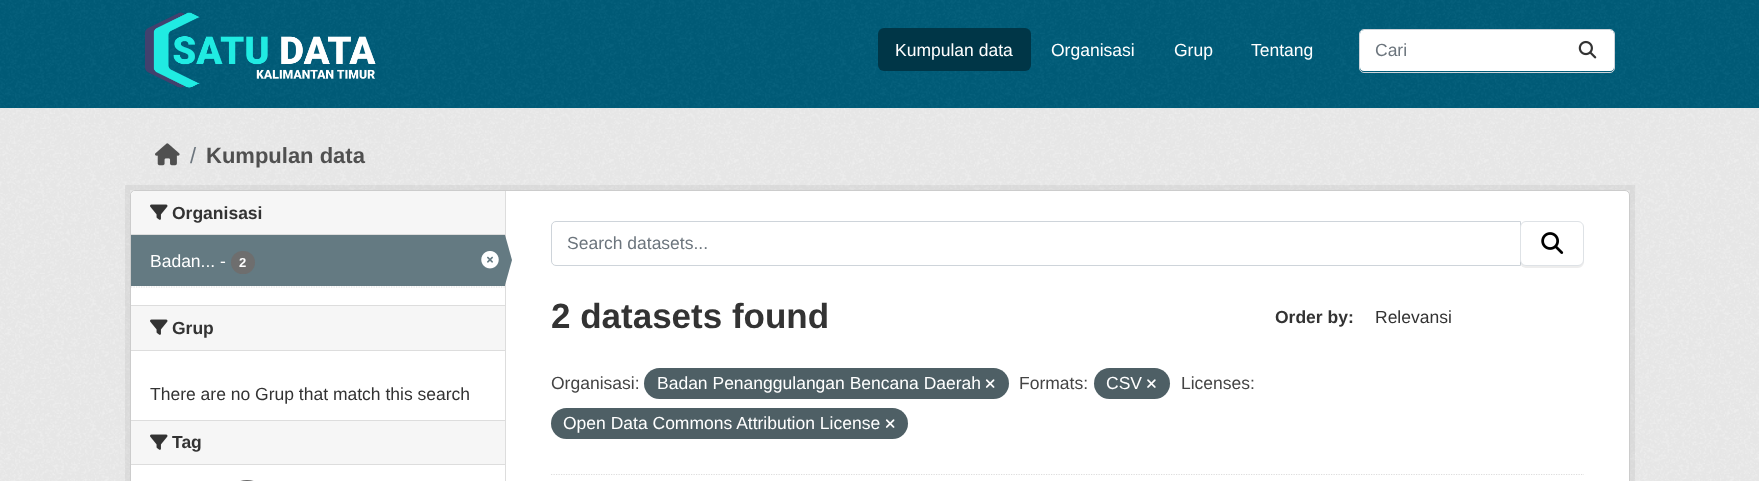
<svg xmlns="http://www.w3.org/2000/svg" width="1759" height="481" viewBox="0 0 1759 481">
  <rect width="100%" height="100%" fill="rgb(0,93,122)"/>
  <image x="0" y="0" width="1759" height="108" href="pic1.png"/>
  <image x="145" y="12" width="231" height="76" href="pic2.png"/>
  <rect x="878" y="28" width="153" height="43" rx="6" fill="rgb(0,54,71)"/>
  <g font-family="Liberation Sans" font-size="17.5" fill="rgb(255,255,255)">
    <text x="895" y="56">Kumpulan data</text>
    <text x="1051" y="56">Organisasi</text>
    <text x="1174" y="56">Grup</text>
    <text x="1251" y="56">Tentang</text>
  </g>
  <rect x="1360" y="30" width="254" height="41" rx="4" fill="rgb(255,255,255)"/>
  <rect x="1359.5" y="29.5" width="255" height="43" rx="4.5" fill="none" stroke="rgb(206,212,218)"/>
  <text x="1375" y="56" font-family="Liberation Sans" font-size="17.5" fill="rgb(108,117,125)">Cari</text>
  <image x="1578" y="40" width="19" height="19" href="pic3.png"/>
  <rect x="0" y="108" width="1759" height="373" fill="rgb(238,238,238)"/>
  <image x="0" y="108" width="1759" height="373" href="pic4.png"/>
  <image x="155" y="143" width="25" height="23" href="pic5.png"/>
  <text x="190" y="163" font-family="Liberation Sans" font-size="22" fill="rgb(108,117,125)">/</text>
  <text x="206" y="163" font-family="Liberation Sans" font-size="22" font-weight="bold" fill="rgb(80,80,80)">Kumpulan data</text>
  <rect x="127.5" y="187.5" width="1505" height="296" fill="none" stroke="rgba(0,0,0,0.05)" stroke-width="5"/>
  <rect x="130.5" y="190.5" width="1499" height="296" rx="4.5" fill="rgb(255,255,255)" stroke="rgb(204,204,204)"/>
  <path d="M135 191H505V235H131V195C131 193 133 191 135 191Z" fill="rgb(246,246,246)"/>
  <rect x="131" y="234" width="374" height="1" fill="rgb(221,221,221)"/>
  <image x="150" y="204" width="18" height="16" href="pic6.png"/>
  <text x="172" y="219" font-family="Liberation Sans" font-size="17.5" font-weight="bold" fill="rgb(51,51,51)">Organisasi</text>
  <rect x="131" y="235" width="374" height="51" fill="rgb(100,122,130)"/>
  <text x="150" y="267" font-family="Liberation Sans" font-size="17.5" fill="rgb(255,255,255)">Badan... -</text>
  <rect x="231" y="251" width="24" height="23" rx="11.5" fill="rgb(110,110,110)"/>
  <text x="239" y="267" font-family="Liberation Sans" font-size="13" font-weight="bold" fill="rgb(255,255,255)">2</text>
  <image x="481" y="251" width="18" height="18" href="pic7.png"/>
  <rect x="505" y="191" width="1" height="290" fill="rgb(221,221,221)"/>
  <path d="M505 285V235L512 260Z" fill="rgb(100,122,130)"/>
  <path d="M131 287H505" fill="none" stroke="rgb(221,221,221)" stroke-width="1.2" stroke-dasharray="1.25 1.25"/>
  <rect x="131" y="306" width="374" height="44" fill="rgb(246,246,246)"/>
  <rect x="131" y="305" width="374" height="1" fill="rgb(221,221,221)"/>
  <rect x="131" y="350" width="374" height="1" fill="rgb(221,221,221)"/>
  <image x="150" y="319" width="18" height="16" href="pic6.png"/>
  <text x="172" y="334" font-family="Liberation Sans" font-size="17.5" font-weight="bold" fill="rgb(51,51,51)">Grup</text>
  <text x="150" y="400" font-family="Liberation Sans" font-size="17.5" fill="rgb(51,51,51)">There are no Grup that match this search</text>
  <rect x="131" y="421" width="374" height="43" fill="rgb(246,246,246)"/>
  <rect x="131" y="420" width="374" height="1" fill="rgb(221,221,221)"/>
  <rect x="131" y="464" width="374" height="1" fill="rgb(221,221,221)"/>
  <image x="150" y="434" width="18" height="16" href="pic6.png"/>
  <text x="172" y="448" font-family="Liberation Sans" font-size="17.5" font-weight="bold" fill="rgb(51,51,51)">Tag</text>
  <rect x="235" y="480" width="24" height="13" rx="11.5" fill="rgb(110,110,110)"/>
  <path d="M551 474.5H1584" fill="none" stroke="rgb(221,221,221)" stroke-width="1.2" stroke-dasharray="1.25 1.25"/>
  <path d="M556 221.5H1520.5V265.5H556C553.5 265.5 551.5 263.5 551.5 261V226C551.5 223.5 553.5 221.5 556 221.5Z" fill="none" stroke="rgb(206,212,218)"/>
  <text x="567" y="249" font-family="Liberation Sans" font-size="17.5" fill="rgb(108,117,125)">Search datasets...</text>
  <rect x="1520" y="223" width="64" height="45" rx="6" fill="rgba(0,0,0,0.07)" filter="blur(0.5px)"/>
  <rect x="1520.5" y="221.5" width="63" height="44" rx="5.5" fill="rgb(255,255,255)" stroke="rgb(222,226,230)"/>
  <image x="1541" y="232" width="23" height="22" href="pic8.png"/>
  <text x="551" y="328" font-family="Liberation Sans" font-size="35" font-weight="bold" fill="rgb(51,51,51)">2 datasets found</text>
  <text x="1275" y="323" font-family="Liberation Sans" font-size="17.5" font-weight="bold" fill="rgb(51,51,51)">Order by:</text>
  <text x="1375" y="323" font-family="Liberation Sans" font-size="17.5" fill="rgb(51,51,51)">Relevansi</text>
  <text x="551" y="389" font-family="Liberation Sans" font-size="17.5" fill="rgb(68,68,68)">Organisasi:</text>
  <rect x="644" y="368" width="365" height="31" rx="15.5" fill="rgb(78,95,101)"/>
  <text x="657" y="389" font-family="Liberation Sans" font-size="17.5" fill="rgb(255,255,255)">Badan Penanggulangan Bencana Daerah</text>
  <image x="985" y="379" width="10" height="9" href="pic9.png"/>
  <text x="1019" y="389" font-family="Liberation Sans" font-size="17.5" fill="rgb(68,68,68)">Formats:</text>
  <rect x="1094" y="368" width="76" height="31" rx="15.5" fill="rgb(78,95,101)"/>
  <text x="1106" y="389" font-family="Liberation Sans" font-size="17.5" fill="rgb(255,255,255)">CSV</text>
  <image x="1147" y="379" width="9" height="9" href="pic10.png"/>
  <text x="1181" y="389" font-family="Liberation Sans" font-size="17.5" fill="rgb(68,68,68)">Licenses:</text>
  <rect x="551" y="408" width="357" height="31" rx="15.5" fill="rgb(78,95,101)"/>
  <text x="563" y="429" font-family="Liberation Sans" font-size="17.5" fill="rgb(255,255,255)">Open Data Commons Attribution License</text>
  <image x="885" y="419" width="10" height="9" href="pic9.png"/>
</svg>
